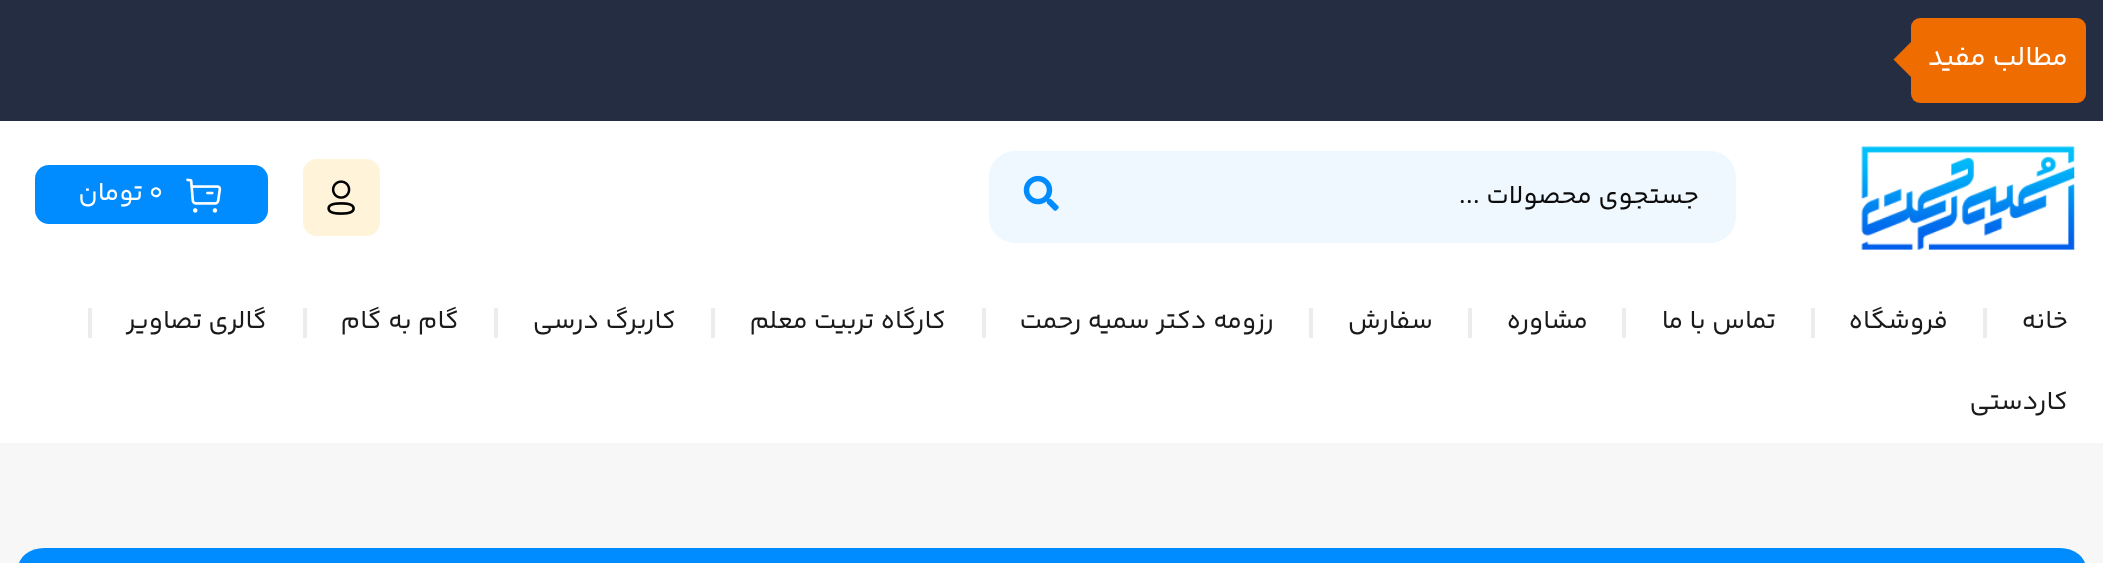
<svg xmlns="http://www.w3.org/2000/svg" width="2103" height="563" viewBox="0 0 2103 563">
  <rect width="100%" height="100%" fill="rgb(247,247,248)"/>
  <rect x="0" y="0" width="2103" height="121" fill="rgb(37,45,67)"/>
  <rect x="1911" y="18" width="175" height="85" rx="9" fill="rgb(239,108,0)"/>
  <text x="2068" y="65" font-family="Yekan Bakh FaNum" font-size="28" direction="rtl" fill="rgb(255,255,255)">مطالب مفید</text>
  <path d="M1911 42V77L1893.5 59.5Z" fill="rgb(239,108,0)"/>
  <rect x="0" y="121" width="2103" height="322" fill="rgb(255,255,255)"/>
  <image x="1861" y="146" width="214" height="104" href="pic1.png"/>
  <rect x="989" y="151" width="747" height="92" rx="26" fill="rgb(240,248,255)"/>
  <text x="1699" y="203" font-family="Yekan Bakh FaNum" font-size="26.25" direction="rtl" fill="rgb(12,12,12)">جستجوی محصولات ...</text>
  <image x="1023" y="175" width="36" height="36" href="pic2.png"/>
  <rect x="303" y="159" width="77" height="77" rx="14" fill="rgb(255,243,218)"/>
  <image x="327" y="180" width="28" height="35" href="pic3.png"/>
  <rect x="35" y="165" width="233" height="59" rx="14" fill="rgb(0,139,255)"/>
  <image x="186" y="178" width="36" height="35" href="pic4.png"/>
  <text x="148" y="200" font-family="Yekan Bakh FaNum" font-size="26.25" fill="rgb(255,255,255)">0</text>
  <text x="143" y="200" font-family="Yekan Bakh FaNum" font-size="26.25" direction="rtl" fill="rgb(255,255,255)">تومان</text>
  <text x="2068" y="328" font-family="Yekan Bakh FaNum" font-size="26.25" direction="rtl" fill="rgb(26,26,26)">خانه</text>
  <rect x="1983" y="308" width="4" height="30" fill="rgb(236,236,236)"/>
  <text x="1948" y="328" font-family="Yekan Bakh FaNum" font-size="26.25" direction="rtl" fill="rgb(26,26,26)">فروشگاه</text>
  <rect x="1811" y="308" width="4" height="30" fill="rgb(236,236,236)"/>
  <text x="1776" y="328" font-family="Yekan Bakh FaNum" font-size="26.25" direction="rtl" fill="rgb(26,26,26)">تماس با ما</text>
  <rect x="1622" y="308" width="4" height="30" fill="rgb(236,236,236)"/>
  <text x="1588" y="328" font-family="Yekan Bakh FaNum" font-size="26.25" direction="rtl" fill="rgb(26,26,26)">مشاوره</text>
  <rect x="1468" y="308" width="4" height="30" fill="rgb(236,236,236)"/>
  <text x="1433" y="328" font-family="Yekan Bakh FaNum" font-size="26.25" direction="rtl" fill="rgb(26,26,26)">سفارش</text>
  <rect x="1309" y="308" width="4" height="30" fill="rgb(236,236,236)"/>
  <text x="1274" y="328" font-family="Yekan Bakh FaNum" font-size="26.25" direction="rtl" fill="rgb(26,26,26)">رزومه دکتر سمیه رحمت</text>
  <rect x="982" y="308" width="4" height="30" fill="rgb(236,236,236)"/>
  <text x="946" y="328" font-family="Yekan Bakh FaNum" font-size="26.25" direction="rtl" fill="rgb(26,26,26)">کارگاه تربیت معلم</text>
  <rect x="711" y="308" width="4" height="30" fill="rgb(236,236,236)"/>
  <text x="676" y="328" font-family="Yekan Bakh FaNum" font-size="26.25" direction="rtl" fill="rgb(26,26,26)">کاربرگ درسی</text>
  <rect x="494" y="308" width="4" height="30" fill="rgb(236,236,236)"/>
  <text x="459" y="328" font-family="Yekan Bakh FaNum" font-size="26.25" direction="rtl" fill="rgb(26,26,26)">گام به گام</text>
  <rect x="303" y="308" width="4" height="30" fill="rgb(236,236,236)"/>
  <text x="267" y="328" font-family="Yekan Bakh FaNum" font-size="26.25" direction="rtl" fill="rgb(26,26,26)">گالری تصاویر</text>
  <rect x="88" y="308" width="4" height="30" fill="rgb(236,236,236)"/>
  <text x="2068" y="409" font-family="Yekan Bakh FaNum" font-size="26.25" direction="rtl" fill="rgb(26,26,26)">کاردستی</text>
  <rect x="18" y="548" width="2068" height="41" rx="26" fill="rgb(0,139,255)"/>
</svg>
